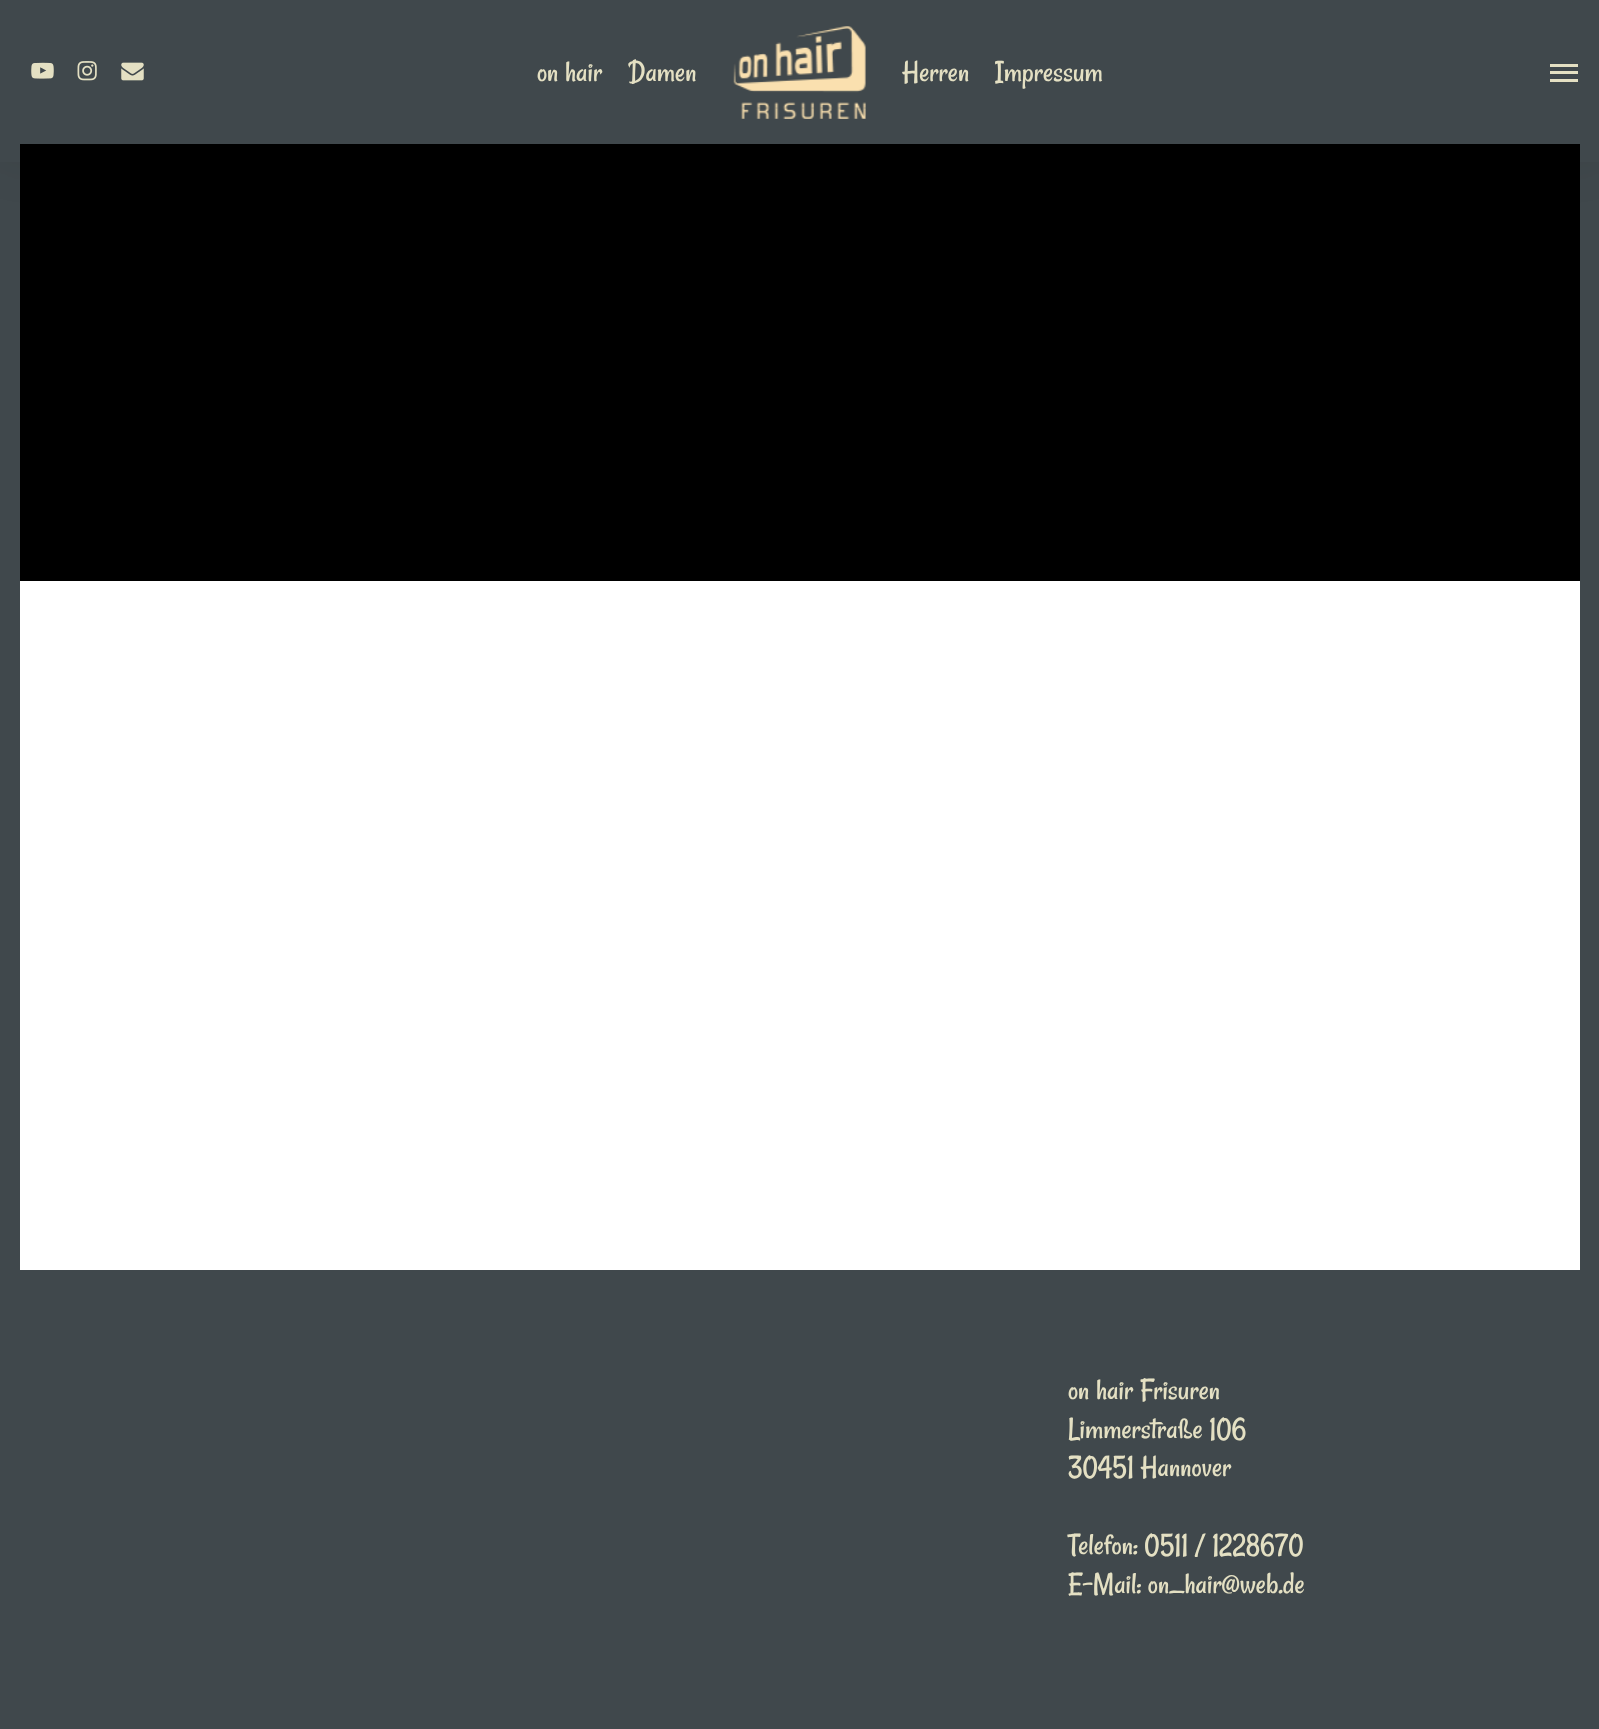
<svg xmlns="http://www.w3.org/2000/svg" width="1599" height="1729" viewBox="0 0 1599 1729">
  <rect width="100%" height="100%" fill="rgb(64,72,76)"/>
  <rect x="20" y="144" width="1560" height="437" fill="rgb(0,0,0)"/>
  <rect x="0" y="4" width="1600" height="144" fill="rgba(0,0,0,0.15)" filter="blur(28px)"/>
  <rect x="0" y="0" width="20" height="162" fill="rgb(64,72,76)"/>
  <rect x="20" y="0" width="1560" height="144" fill="rgb(64,72,76)"/>
  <image x="733" y="26" width="133" height="93" href="pic1.png"/>
  <image x="31" y="62" width="23" height="17" href="pic2.png"/>
  <image x="77" y="61" width="20" height="20" href="pic3.png"/>
  <image x="121" y="62" width="23" height="19" href="pic4.png"/>
  <g font-family="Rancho" font-size="31.25" fill="rgb(228,224,195)">
    <text x="537" y="81">on hair</text>
    <text x="628" y="81">Damen</text>
    <text x="902" y="81">Herren</text>
    <text x="995" y="81">Impressum</text>
  </g>
  <rect x="1550" y="64" width="28" height="3" fill="rgb(228,224,195)"/>
  <rect x="1550" y="79" width="28" height="3" fill="rgb(228,224,195)"/>
  <rect x="1550" y="71" width="28" height="3" fill="rgb(228,224,195)"/>
  <rect x="1580" y="0" width="19" height="162" fill="rgb(64,72,76)"/>
  <rect x="20" y="581" width="1560" height="689" fill="rgb(255,255,255)"/>
  <g font-family="Rancho" font-size="31.25" fill="rgb(228,224,195)">
    <text>
      <tspan x="1068" y="1399">on hair Frisuren</tspan>
      <tspan x="1068" y="1438">Limmerstraße 106</tspan>
      <tspan x="1068" y="1476">30451 Hannover</tspan>
    </text>
    <text>
      <tspan x="1068" y="1554">Telefon: 0511 / 1228670</tspan>
      <tspan x="1068" y="1593">E-Mail: on_hair@web.de</tspan>
    </text>
  </g>
</svg>
